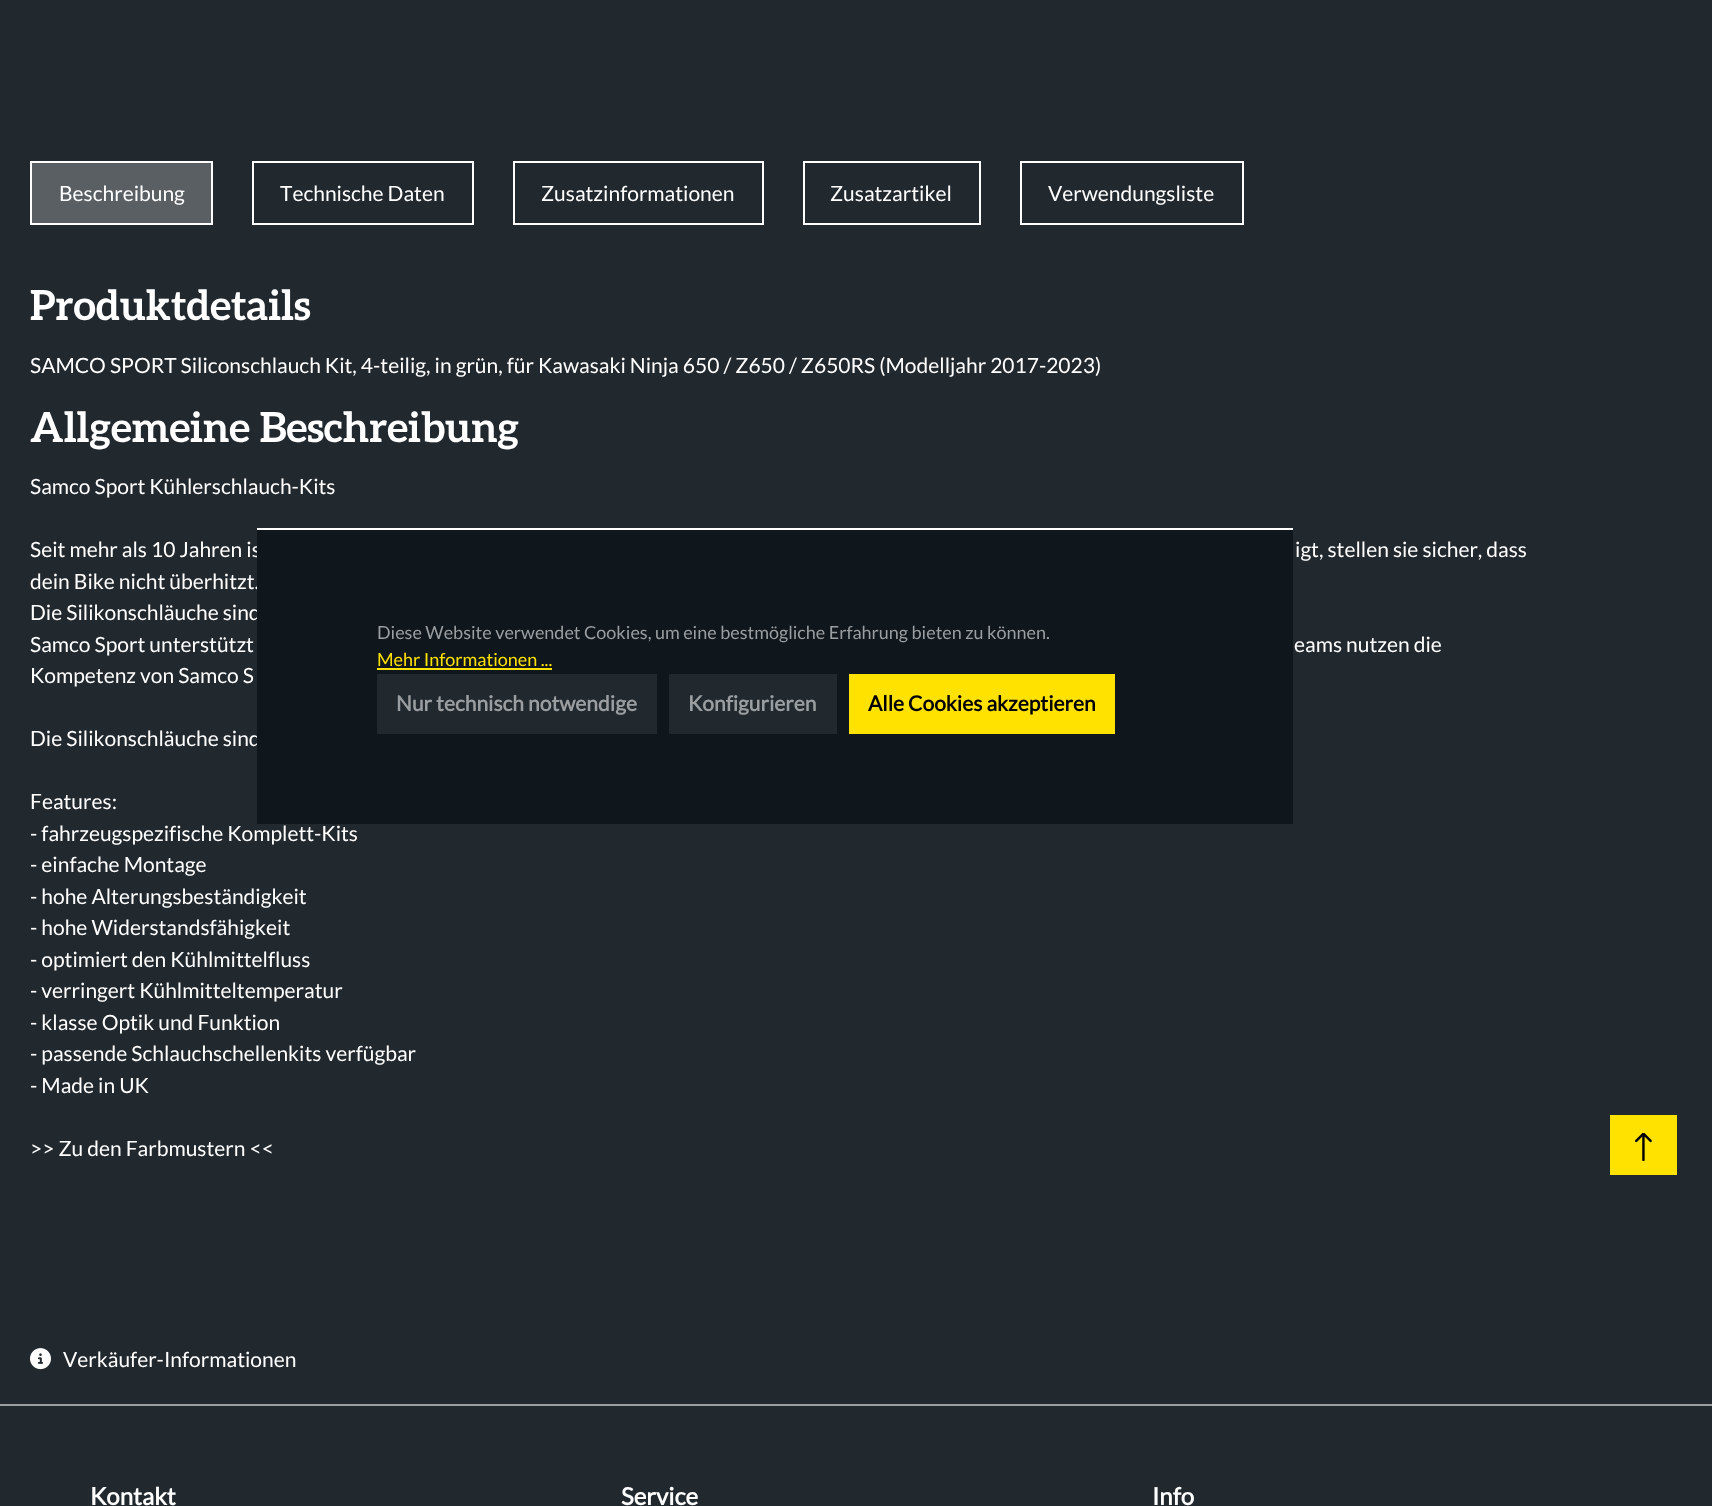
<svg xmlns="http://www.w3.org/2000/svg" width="1712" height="1506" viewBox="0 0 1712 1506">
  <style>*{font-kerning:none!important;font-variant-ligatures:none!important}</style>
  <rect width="100%" height="100%" fill="rgb(33,40,46)"/>
  <rect x="31" y="162" width="181" height="62" fill="rgb(90,95,99)" stroke="rgb(255,255,255)" stroke-width="2"/>
  <text x="59" y="201" font-family="Lato" font-size="21" fill="rgb(255,255,255)">Beschreibung</text>
  <rect x="253" y="162" width="220" height="62" fill="none" stroke="rgb(255,255,255)" stroke-width="2"/>
  <text x="280" y="201" font-family="Lato" font-size="21" fill="rgb(255,255,255)">Technische Daten</text>
  <rect x="514" y="162" width="249" height="62" fill="none" stroke="rgb(255,255,255)" stroke-width="2"/>
  <text x="541" y="201" font-family="Lato" font-size="21" fill="rgb(255,255,255)">Zusatzinformationen</text>
  <rect x="804" y="162" width="176" height="62" fill="none" stroke="rgb(255,255,255)" stroke-width="2"/>
  <text x="830" y="201" font-family="Lato" font-size="21" fill="rgb(255,255,255)">Zusatzartikel</text>
  <rect x="1021" y="162" width="222" height="62" fill="none" stroke="rgb(255,255,255)" stroke-width="2"/>
  <text x="1048" y="201" font-family="Lato" font-size="21" fill="rgb(255,255,255)">Verwendungsliste</text>
  <text x="30" y="320" font-family="Aleo" font-size="41.5" font-weight="bold" fill="rgb(255,255,255)">Produktdetails</text>
  <text x="30" y="373" font-family="Lato" font-size="21" fill="rgb(255,255,255)">SAMCO SPORT Siliconschlauch Kit, 4-teilig, in grün, für Kawasaki Ninja 650 / Z650 / Z650RS (Modelljahr 2017-2023)</text>
  <text x="30" y="442" font-family="Aleo" font-size="41.5" font-weight="bold" fill="rgb(255,255,255)">Allgemeine Beschreibung</text>
  <g font-family="Lato" font-size="21" fill="rgb(255,255,255)">
    <text x="30" y="494">Samco Sport Kühlerschlauch-Kits</text>
    <text x="30" y="557">Seit mehr als 10 Jahren is</text>
    <text x="1295" y="557">igt, stellen sie sicher, dass</text>
    <text>
      <tspan x="30" y="589">dein Bike nicht überhitzt.</tspan>
      <tspan x="30" y="620">Die Silikonschläuche sind</tspan>
      <tspan x="30" y="652">Samco Sport unterstützt</tspan>
    </text>
    <text x="1294" y="652">eams nutzen die</text>
    <text x="30" y="683">Kompetenz von Samco S</text>
    <text x="30" y="746">Die Silikonschläuche sind</text>
    <text>
      <tspan x="30" y="809">Features:</tspan>
      <tspan x="30" y="841">- fahrzeugspezifische Komplett-Kits</tspan>
      <tspan x="30" y="872">- einfache Montage</tspan>
      <tspan x="30" y="904">- hohe Alterungsbeständigkeit</tspan>
      <tspan x="30" y="935">- hohe Widerstandsfähigkeit</tspan>
      <tspan x="30" y="967">- optimiert den Kühlmittelfluss</tspan>
      <tspan x="30" y="998">- verringert Kühlmitteltemperatur</tspan>
      <tspan x="30" y="1030">- klasse Optik und Funktion</tspan>
      <tspan x="30" y="1061">- passende Schlauchschellenkits verfügbar</tspan>
      <tspan x="30" y="1093">- Made in UK</tspan>
    </text>
    <text x="30" y="1156">&gt;&gt; Zu den Farbmustern &lt;&lt;</text>
  </g>
  <image x="30" y="1348" width="21" height="22" href="pic1.png"/>
  <text x="63" y="1367" font-family="Lato" font-size="21" fill="rgb(255,255,255)">Verkäufer-Informationen</text>
  <rect x="257" y="530" width="1036" height="294" fill="rgb(15,22,28)"/>
  <rect x="257" y="528" width="1036" height="2" fill="rgb(255,255,255)"/>
  <text x="377" y="639" font-family="Lato" font-size="18" fill="rgb(154,158,160)">Diese Website verwendet Cookies, um eine bestmögliche Erfahrung bieten zu können.</text>
  <text x="377" y="666" font-family="Lato" font-size="18" fill="rgb(255,226,0)">Mehr Informationen ...</text>
  <rect x="377" y="668" width="175" height="2" fill="rgb(255,226,0)"/>
  <rect x="377" y="674" width="280" height="60" fill="rgb(33,40,46)"/>
  <text x="396" y="711" font-family="Lato" font-size="21" font-weight="bold" fill="rgb(154,158,160)">Nur technisch notwendige</text>
  <rect x="669" y="674" width="168" height="60" fill="rgb(33,40,46)"/>
  <text x="688" y="711" font-family="Lato" font-size="21" font-weight="bold" fill="rgb(154,158,160)">Konfigurieren</text>
  <rect x="849" y="674" width="266" height="60" fill="rgb(255,226,0)"/>
  <text x="868" y="711" font-family="Lato" font-size="21" font-weight="bold" fill="rgb(0,0,0)">Alle Cookies akzeptieren</text>
  <rect x="1610" y="1115" width="67" height="60" fill="rgb(255,226,0)"/>
  <image x="1635" y="1133" width="17" height="28" href="pic2.png"/>
  <rect x="0" y="1404" width="1712" height="2" fill="rgb(154,158,160)"/>
  <g font-family="Lato" font-size="24" font-weight="bold" fill="rgb(255,255,255)">
    <text x="90" y="1505">Kontakt</text>
    <text x="621" y="1505">Service</text>
    <text x="1152" y="1505">Info</text>
  </g>
</svg>
